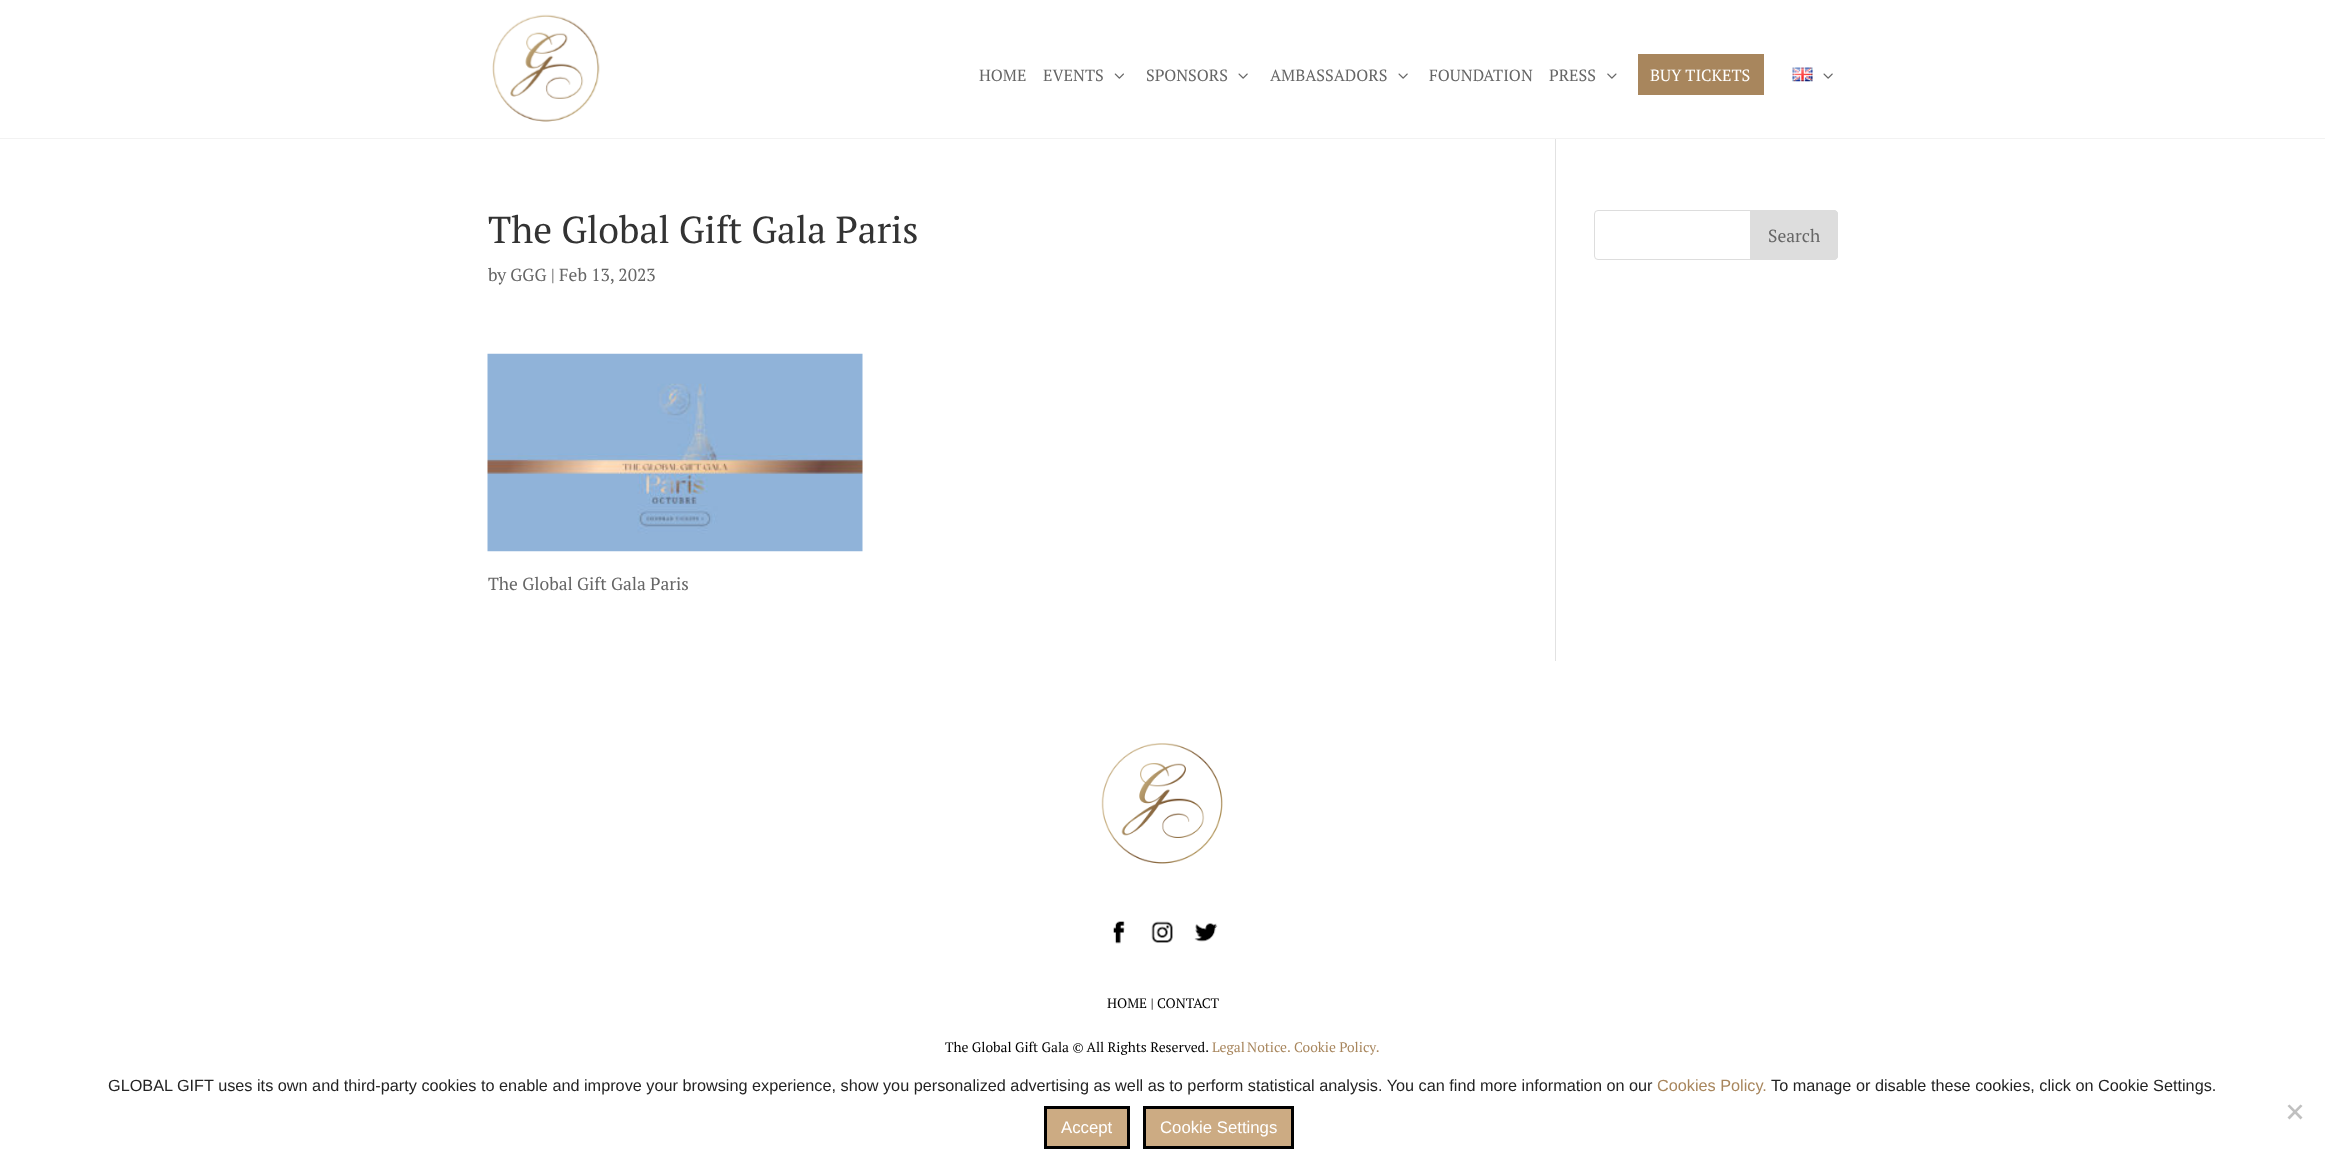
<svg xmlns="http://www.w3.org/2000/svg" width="2325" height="1167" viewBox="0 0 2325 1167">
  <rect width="100%" height="100%" fill="rgb(255,255,255)"/>
  <rect x="1555" y="138" width="1" height="523" fill="rgb(226,226,226)"/>
  <rect x="0" y="138" width="2325" height="1" fill="rgb(242,242,242)"/>
  <image x="492" y="14" width="108" height="108" href="pic1.png"/>
  <g font-family="PT Serif" font-size="16.25" fill="rgb(102,102,102)">
    <text x="979" y="81">HOME</text>
    <text x="1043" y="81">EVENTS</text>
  </g>
  <image x="1114" y="73" width="10" height="6" href="pic2.png"/>
  <text x="1146" y="81" font-family="PT Serif" font-size="16.25" fill="rgb(102,102,102)">SPONSORS</text>
  <image x="1238" y="73" width="10" height="6" href="pic3.png"/>
  <text x="1270" y="81" font-family="PT Serif" font-size="16.25" fill="rgb(102,102,102)">AMBASSADORS</text>
  <image x="1398" y="73" width="10" height="6" href="pic3.png"/>
  <g font-family="PT Serif" font-size="16.25" fill="rgb(102,102,102)">
    <text x="1429" y="81">FOUNDATION</text>
    <text x="1549" y="81">PRESS</text>
  </g>
  <image x="1607" y="73" width="10" height="6" href="pic4.png"/>
  <rect x="1638" y="54" width="126" height="41" fill="rgb(168,134,93)"/>
  <text x="1650" y="81" font-family="PT Serif" font-size="16.25" fill="rgb(255,255,255)">BUY TICKETS</text>
  <image x="1792" y="67" width="21" height="15" href="pic5.png"/>
  <image x="1823" y="73" width="10" height="6" href="pic3.png"/>
  <text x="488" y="243" font-family="PT Serif" font-size="37.5" fill="rgb(51,51,51)">The Global Gift Gala Paris</text>
  <text x="488" y="281" font-family="PT Serif" font-size="17.5" fill="rgb(102,102,102)">by GGG | Feb 13, 2023</text>
  <image x="487" y="353" width="376" height="199" href="pic6.png"/>
  <text x="488" y="590" font-family="PT Serif" font-size="17.5" fill="rgb(102,102,102)">The Global Gift Gala Paris</text>
  <rect x="1594.5" y="210.5" width="243" height="49" rx="3.5" fill="none" stroke="rgb(221,221,221)"/>
  <path d="M1750.5 210.5H1834C1836 210.5 1837.5 212 1837.5 214V256C1837.5 258 1836 259.5 1834 259.5H1750.5Z" fill="rgb(221,221,221)" stroke="rgb(221,221,221)"/>
  <text x="1768" y="242" font-family="PT Serif" font-size="17.5" fill="rgb(102,102,102)">Search</text>
  <image x="1101" y="743" width="122" height="121" href="pic7.png"/>
  <image x="1113" y="921" width="12" height="23" href="pic8.png"/>
  <image x="1151" y="921" width="22" height="22" href="pic9.png"/>
  <image x="1194" y="923" width="24" height="19" href="pic10.png"/>
  <g font-family="PT Serif" font-size="13.75" fill="rgb(0,0,0)">
    <text x="1107" y="1008">HOME | CONTACT</text>
    <text x="945" y="1052">The Global Gift Gala © All Rights Reserved.</text>
  </g>
  <g font-family="PT Serif" font-size="13.75" fill="rgb(168,134,93)">
    <text x="1212" y="1052" word-spacing="-1">Legal Notice.</text>
    <text x="1294" y="1052">Cookie Policy.</text>
  </g>
  <text x="108" y="1091" font-family="Liberation Sans" font-size="16.25" fill="rgb(35,35,35)">GLOBAL GIFT uses its own and third-party cookies to enable and improve your browsing experience, show you personalized advertising as well as to perform statistical analysis. You can find more information on our</text>
  <text x="1657" y="1091" font-family="Liberation Sans" font-size="16.25" fill="rgb(168,134,93)">Cookies Policy.</text>
  <text x="1771" y="1091" font-family="Liberation Sans" font-size="16.25" fill="rgb(35,35,35)">To manage or disable these cookies, click on Cookie Settings.</text>
  <path d="M2300.5 1104.5L2302.5 1106L2289.5 1119.5L2287.5 1117.5Z" fill="rgb(192,192,192)"/>
  <path d="M2287.5 1106L2289.5 1104.5L2302.5 1117.5L2300.5 1119.5Z" fill="rgb(192,192,192)"/>
  <rect x="1045.5" y="1107.5" width="83" height="40" fill="rgb(204,171,131)" stroke="rgb(0,0,0)" stroke-width="3"/>
  <text x="1061" y="1133" font-family="Liberation Sans" font-size="16.75" fill="rgb(255,255,255)">Accept</text>
  <rect x="1144.5" y="1107.5" width="148" height="40" fill="rgb(204,171,131)" stroke="rgb(0,0,0)" stroke-width="3"/>
  <text x="1160" y="1133" font-family="Liberation Sans" font-size="16.75" fill="rgb(255,255,255)">Cookie Settings</text>
</svg>
